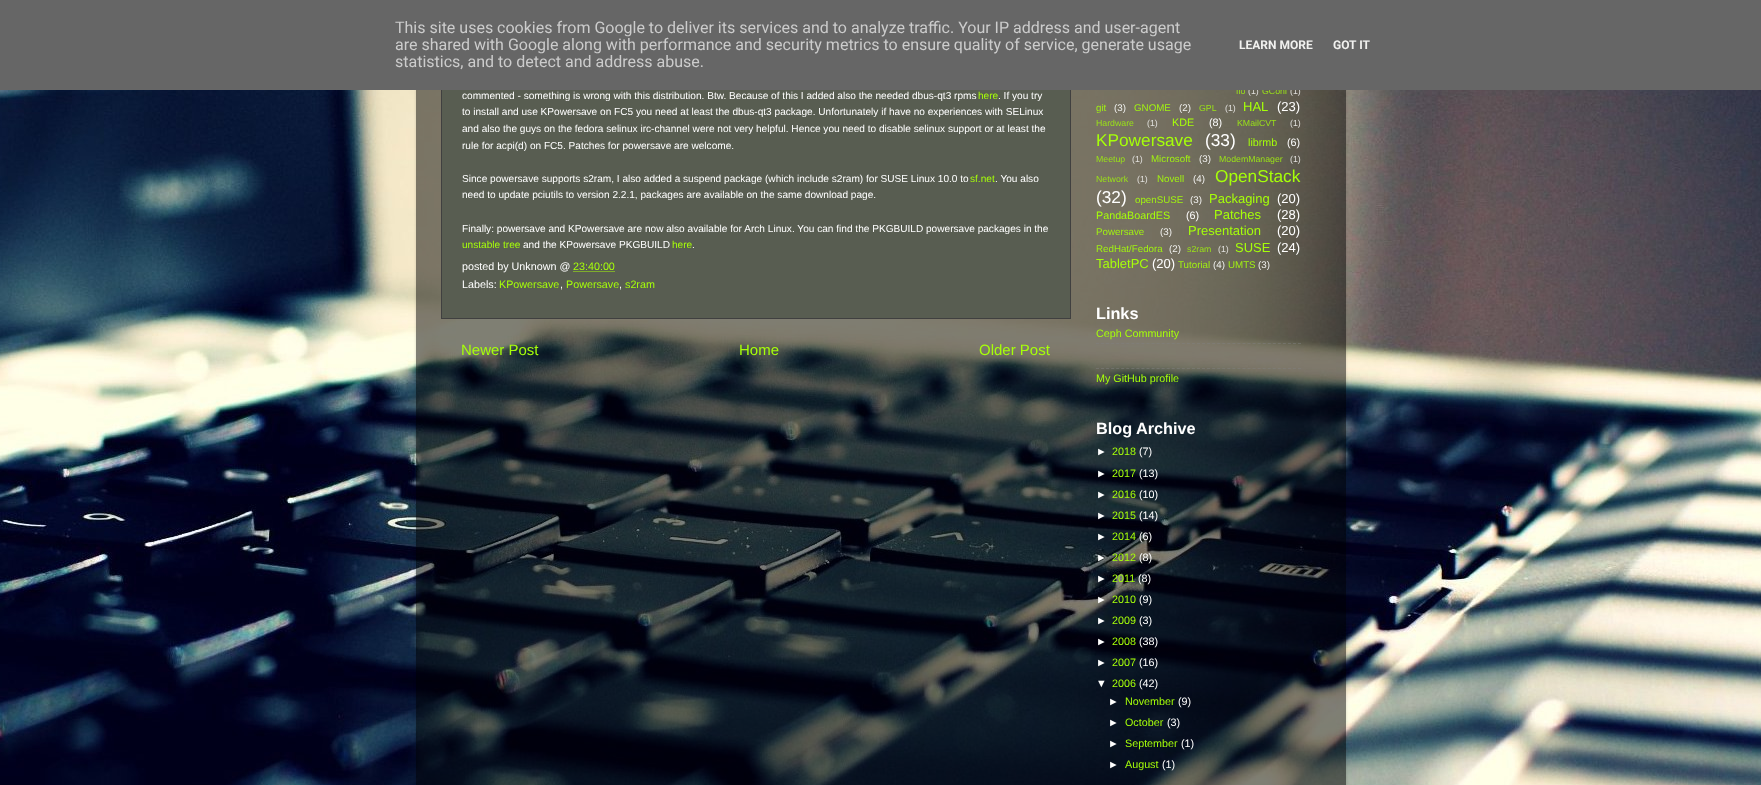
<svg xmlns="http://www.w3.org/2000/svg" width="1761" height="785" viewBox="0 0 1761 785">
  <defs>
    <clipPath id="clip1"><path d="M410 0H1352V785H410ZM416-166H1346V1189H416Z" clip-rule="evenodd"/></clipPath>
  </defs>
  <rect width="100%" height="100%" fill="rgb(255,255,255)"/>
  <image x="0" y="90" width="1761" height="695" href="pic1.png"/>
  <g clip-path="url(#clip1)">
    <rect x="416" y="-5" width="930" height="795" fill="rgba(0,0,0,0.15)" filter="blur(1.5px)"/>
  </g>
  <rect x="416" y="90" width="930" height="695" fill="rgba(0,0,0,0.5)"/>
  <rect x="442" y="90" width="628" height="228" fill="rgb(88,93,81)"/>
  <rect x="441.5" y="-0.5" width="629" height="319" fill="none" stroke="rgb(64,64,64)"/>
  <text x="1236" y="94" font-family="Liberation Sans" font-size="8.75" fill="rgb(154,224,25)">fio</text>
  <text x="1248" y="94" font-family="Liberation Sans" font-size="8.75" fill="rgb(225,224,221)">(1)</text>
  <text x="1262" y="94" font-family="Liberation Sans" font-size="8.75" fill="rgb(154,224,25)">GConf</text>
  <text x="1290" y="94" font-family="Liberation Sans" font-size="8.75" fill="rgb(225,224,221)">(1)</text>
  <rect x="0" y="0" width="1761" height="90" fill="rgb(102,102,102)"/>
  <g font-family="Roboto" font-size="16" fill="rgb(204,204,204)">
    <text>
      <tspan x="395" y="33">This site uses cookies from Google to deliver its services and to analyze traffic. Your IP address and user-agent</tspan>
      <tspan x="395" y="50">are shared with Google along with performance and security metrics to ensure quality of service, generate usage</tspan>
      <tspan x="395" y="67">statistics, and to detect and address abuse.</tspan>
    </text>
  </g>
  <g font-family="Roboto" font-size="12" font-weight="bold" fill="rgb(241,241,239)">
    <text x="1239" y="49">LEARN MORE</text>
    <text x="1333" y="49">GOT IT</text>
  </g>
  <text x="462" y="99" font-family="Liberation Sans" font-size="10.1" fill="rgb(255,255,255)">commented - something is wrong with this distribution. Btw. Because of this I added also the needed dbus-qt3 rpms</text>
  <text x="978" y="99" font-family="Liberation Sans" font-size="10.1" fill="rgb(166,255,9)">here</text>
  <g font-family="Liberation Sans" font-size="10.1" fill="rgb(255,255,255)">
    <text x="998" y="99">. If you try</text>
    <text>
      <tspan x="462" y="115">to install and use KPowersave on FC5 you need at least the dbus-qt3 package. Unfortunately if have no experiences with SELinux</tspan>
      <tspan x="462" y="132">and also the guys on the fedora selinux irc-channel were not very helpful. Hence you need to disable selinux support or at least the</tspan>
      <tspan x="462" y="149">rule for acpi(d) on FC5. Patches for powersave are welcome.</tspan>
    </text>
    <text x="462" y="182">Since powersave supports s2ram, I also added a suspend package (which include s2ram) for SUSE Linux 10.0 to</text>
  </g>
  <text x="970" y="182" font-family="Liberation Sans" font-size="10.1" fill="rgb(166,255,9)">sf.net</text>
  <g font-family="Liberation Sans" font-size="10.1" fill="rgb(255,255,255)">
    <text x="995" y="182">. You also</text>
    <text x="462" y="198">need to update pciutils to version 2.2.1, packages are available on the same download page.</text>
    <text x="462" y="232">Finally: powersave and KPowersave are now also available for Arch Linux. You can find the PKGBUILD powersave packages in the</text>
  </g>
  <text x="462" y="248" font-family="Liberation Sans" font-size="10.1" fill="rgb(166,255,9)">unstable tree</text>
  <text x="523" y="248" font-family="Liberation Sans" font-size="10.1" fill="rgb(255,255,255)">and the KPowersave PKGBUILD</text>
  <text x="672" y="248" font-family="Liberation Sans" font-size="10.1" fill="rgb(166,255,9)">here</text>
  <text x="692" y="248" font-family="Liberation Sans" font-size="10.1" fill="rgb(255,255,255)">.</text>
  <text x="462" y="270" font-family="Liberation Sans" font-size="10.75" fill="rgb(255,255,255)">posted by Unknown @</text>
  <text x="573" y="270" font-family="Liberation Sans" font-size="10.75" fill="rgb(166,255,9)">23:40:00</text>
  <path d="M573.5 271.5H615.5" fill="none" stroke="rgb(166,255,9)" stroke-dasharray="1 1"/>
  <text x="462" y="288" font-family="Liberation Sans" font-size="10.75" fill="rgb(255,255,255)">Labels:</text>
  <text x="499" y="288" font-family="Liberation Sans" font-size="10.75" fill="rgb(166,255,9)">KPowersave</text>
  <text x="560" y="288" font-family="Liberation Sans" font-size="10.75" fill="rgb(255,255,255)">,</text>
  <text x="566" y="288" font-family="Liberation Sans" font-size="10.75" fill="rgb(166,255,9)">Powersave</text>
  <text x="619" y="288" font-family="Liberation Sans" font-size="10.75" fill="rgb(255,255,255)">,</text>
  <text x="625" y="288" font-family="Liberation Sans" font-size="10.75" fill="rgb(166,255,9)">s2ram</text>
  <g font-family="Liberation Sans" font-size="15" fill="rgb(166,255,9)">
    <text x="461" y="355">Newer Post</text>
    <text x="739" y="355">Home</text>
    <text x="979" y="355">Older Post</text>
  </g>
  <text x="1096" y="111" font-family="Liberation Sans" font-size="9.75" fill="rgb(161,241,18)">git</text>
  <text x="1114" y="111" font-family="Liberation Sans" font-size="9.75" fill="rgb(241,241,239)">(3)</text>
  <text x="1134" y="111" font-family="Liberation Sans" font-size="9.75" fill="rgb(161,241,18)">GNOME</text>
  <text x="1179" y="111" font-family="Liberation Sans" font-size="9.75" fill="rgb(241,241,239)">(2)</text>
  <text x="1199" y="111" font-family="Liberation Sans" font-size="8.75" fill="rgb(154,224,25)">GPL</text>
  <text x="1225" y="111" font-family="Liberation Sans" font-size="8.75" fill="rgb(225,224,221)">(1)</text>
  <text x="1243" y="111" font-family="Liberation Sans" font-size="13" fill="rgb(166,255,9)">HAL</text>
  <text x="1277" y="111" font-family="Liberation Sans" font-size="13" fill="rgb(255,255,255)">(23)</text>
  <text x="1096" y="126" font-family="Liberation Sans" font-size="8.75" fill="rgb(154,224,25)">Hardware</text>
  <text x="1147" y="126" font-family="Liberation Sans" font-size="8.75" fill="rgb(225,224,221)">(1)</text>
  <text x="1172" y="126" font-family="Liberation Sans" font-size="10.75" fill="rgb(166,255,9)">KDE</text>
  <text x="1209" y="126" font-family="Liberation Sans" font-size="10.75" fill="rgb(255,255,255)">(8)</text>
  <text x="1237" y="126" font-family="Liberation Sans" font-size="8.75" fill="rgb(154,224,25)">KMailCVT</text>
  <text x="1290" y="126" font-family="Liberation Sans" font-size="8.75" fill="rgb(225,224,221)">(1)</text>
  <text x="1096" y="146" font-family="Liberation Sans" font-size="17.25" fill="rgb(166,255,9)">KPowersave</text>
  <text x="1205" y="146" font-family="Liberation Sans" font-size="17.25" fill="rgb(255,255,255)">(33)</text>
  <text x="1248" y="146" font-family="Liberation Sans" font-size="10.75" fill="rgb(166,255,9)">librmb</text>
  <text x="1287" y="146" font-family="Liberation Sans" font-size="10.75" fill="rgb(255,255,255)">(6)</text>
  <text x="1096" y="162" font-family="Liberation Sans" font-size="8.75" fill="rgb(154,224,25)">Meetup</text>
  <text x="1132" y="162" font-family="Liberation Sans" font-size="8.75" fill="rgb(225,224,221)">(1)</text>
  <text x="1151" y="162" font-family="Liberation Sans" font-size="9.75" fill="rgb(161,241,18)">Microsoft</text>
  <text x="1199" y="162" font-family="Liberation Sans" font-size="9.75" fill="rgb(241,241,239)">(3)</text>
  <text x="1219" y="162" font-family="Liberation Sans" font-size="8.75" fill="rgb(154,224,25)">ModemManager</text>
  <text x="1290" y="162" font-family="Liberation Sans" font-size="8.75" fill="rgb(225,224,221)">(1)</text>
  <text x="1096" y="182" font-family="Liberation Sans" font-size="8.75" fill="rgb(154,224,25)">Network</text>
  <text x="1137" y="182" font-family="Liberation Sans" font-size="8.75" fill="rgb(225,224,221)">(1)</text>
  <text x="1157" y="182" font-family="Liberation Sans" font-size="9.75" fill="rgb(161,241,18)">Novell</text>
  <text x="1193" y="182" font-family="Liberation Sans" font-size="9.75" fill="rgb(241,241,239)">(4)</text>
  <text x="1215" y="182" font-family="Liberation Sans" font-size="17.25" fill="rgb(166,255,9)">OpenStack</text>
  <text x="1096" y="203" font-family="Liberation Sans" font-size="17.25" fill="rgb(255,255,255)">(32)</text>
  <text x="1135" y="203" font-family="Liberation Sans" font-size="9.75" fill="rgb(161,241,18)">openSUSE</text>
  <text x="1190" y="203" font-family="Liberation Sans" font-size="9.75" fill="rgb(241,241,239)">(3)</text>
  <text x="1209" y="203" font-family="Liberation Sans" font-size="13" fill="rgb(166,255,9)">Packaging</text>
  <text x="1277" y="203" font-family="Liberation Sans" font-size="13" fill="rgb(255,255,255)">(20)</text>
  <text x="1096" y="219" font-family="Liberation Sans" font-size="10.75" fill="rgb(166,255,9)">PandaBoardES</text>
  <text x="1186" y="219" font-family="Liberation Sans" font-size="10.75" fill="rgb(255,255,255)">(6)</text>
  <text x="1214" y="219" font-family="Liberation Sans" font-size="13" fill="rgb(166,255,9)">Patches</text>
  <text x="1277" y="219" font-family="Liberation Sans" font-size="13" fill="rgb(255,255,255)">(28)</text>
  <text x="1096" y="235" font-family="Liberation Sans" font-size="9.75" fill="rgb(161,241,18)">Powersave</text>
  <text x="1160" y="235" font-family="Liberation Sans" font-size="9.75" fill="rgb(241,241,239)">(3)</text>
  <text x="1188" y="235" font-family="Liberation Sans" font-size="13" fill="rgb(166,255,9)">Presentation</text>
  <text x="1277" y="235" font-family="Liberation Sans" font-size="13" fill="rgb(255,255,255)">(20)</text>
  <text x="1096" y="252" font-family="Liberation Sans" font-size="9.75" fill="rgb(161,241,18)">RedHat/Fedora</text>
  <text x="1169" y="252" font-family="Liberation Sans" font-size="9.75" fill="rgb(241,241,239)">(2)</text>
  <text x="1187" y="252" font-family="Liberation Sans" font-size="8.75" fill="rgb(154,224,25)">s2ram</text>
  <text x="1218" y="252" font-family="Liberation Sans" font-size="8.75" fill="rgb(225,224,221)">(1)</text>
  <text x="1235" y="252" font-family="Liberation Sans" font-size="13" fill="rgb(166,255,9)">SUSE</text>
  <text x="1277" y="252" font-family="Liberation Sans" font-size="13" fill="rgb(255,255,255)">(24)</text>
  <text x="1096" y="268" font-family="Liberation Sans" font-size="13" fill="rgb(166,255,9)">TabletPC</text>
  <text x="1152" y="268" font-family="Liberation Sans" font-size="13" fill="rgb(255,255,255)">(20)</text>
  <text x="1178" y="268" font-family="Liberation Sans" font-size="9.75" fill="rgb(161,241,18)">Tutorial</text>
  <text x="1213" y="268" font-family="Liberation Sans" font-size="9.75" fill="rgb(241,241,239)">(4)</text>
  <text x="1228" y="268" font-family="Liberation Sans" font-size="9.75" fill="rgb(161,241,18)">UMTS</text>
  <text x="1258" y="268" font-family="Liberation Sans" font-size="9.75" fill="rgb(241,241,239)">(3)</text>
  <text x="1096" y="319" font-family="Liberation Sans" font-size="16.25" font-weight="bold" fill="rgb(255,255,255)">Links</text>
  <text x="1096" y="337" font-family="Liberation Sans" font-size="10.75" fill="rgb(166,255,9)">Ceph Community</text>
  <path d="M1096 343.5H1301" fill="none" stroke="rgba(128,128,128,0.5)" stroke-dasharray="3 2.05"/>
  <path d="M1096 368.5H1301" fill="none" stroke="rgba(128,128,128,0.5)" stroke-dasharray="3 2.05"/>
  <text x="1096" y="382" font-family="Liberation Sans" font-size="10.75" fill="rgb(166,255,9)">My GitHub profile</text>
  <text x="1096" y="434" font-family="Liberation Sans" font-size="16.25" font-weight="bold" fill="rgb(255,255,255)">Blog Archive</text>
  <text x="1096" y="455" font-family="Liberation Sans" font-size="10.75" fill="rgb(255,255,255)">►</text>
  <text x="1112" y="455" font-family="Liberation Sans" font-size="10.75" fill="rgb(166,255,9)">2018</text>
  <g font-family="Liberation Sans" font-size="10.75" fill="rgb(255,255,255)">
    <text x="1139" y="455">(7)</text>
    <text x="1096" y="477">►</text>
  </g>
  <text x="1112" y="477" font-family="Liberation Sans" font-size="10.75" fill="rgb(166,255,9)">2017</text>
  <g font-family="Liberation Sans" font-size="10.75" fill="rgb(255,255,255)">
    <text x="1139" y="477">(13)</text>
    <text x="1096" y="498">►</text>
  </g>
  <text x="1112" y="498" font-family="Liberation Sans" font-size="10.75" fill="rgb(166,255,9)">2016</text>
  <g font-family="Liberation Sans" font-size="10.75" fill="rgb(255,255,255)">
    <text x="1139" y="498">(10)</text>
    <text x="1096" y="519">►</text>
  </g>
  <text x="1112" y="519" font-family="Liberation Sans" font-size="10.75" fill="rgb(166,255,9)">2015</text>
  <g font-family="Liberation Sans" font-size="10.75" fill="rgb(255,255,255)">
    <text x="1139" y="519">(14)</text>
    <text x="1096" y="540">►</text>
  </g>
  <text x="1112" y="540" font-family="Liberation Sans" font-size="10.75" fill="rgb(166,255,9)">2014</text>
  <g font-family="Liberation Sans" font-size="10.75" fill="rgb(255,255,255)">
    <text x="1139" y="540">(6)</text>
    <text x="1096" y="561">►</text>
  </g>
  <text x="1112" y="561" font-family="Liberation Sans" font-size="10.75" fill="rgb(166,255,9)">2012</text>
  <g font-family="Liberation Sans" font-size="10.75" fill="rgb(255,255,255)">
    <text x="1139" y="561">(8)</text>
    <text x="1096" y="582">►</text>
  </g>
  <text x="1112" y="582" font-family="Liberation Sans" font-size="10.75" fill="rgb(166,255,9)">2011</text>
  <g font-family="Liberation Sans" font-size="10.75" fill="rgb(255,255,255)">
    <text x="1138" y="582">(8)</text>
    <text x="1096" y="603">►</text>
  </g>
  <text x="1112" y="603" font-family="Liberation Sans" font-size="10.75" fill="rgb(166,255,9)">2010</text>
  <g font-family="Liberation Sans" font-size="10.75" fill="rgb(255,255,255)">
    <text x="1139" y="603">(9)</text>
    <text x="1096" y="624">►</text>
  </g>
  <text x="1112" y="624" font-family="Liberation Sans" font-size="10.75" fill="rgb(166,255,9)">2009</text>
  <g font-family="Liberation Sans" font-size="10.75" fill="rgb(255,255,255)">
    <text x="1139" y="624">(3)</text>
    <text x="1096" y="645">►</text>
  </g>
  <text x="1112" y="645" font-family="Liberation Sans" font-size="10.75" fill="rgb(166,255,9)">2008</text>
  <g font-family="Liberation Sans" font-size="10.75" fill="rgb(255,255,255)">
    <text x="1139" y="645">(38)</text>
    <text x="1096" y="666">►</text>
  </g>
  <text x="1112" y="666" font-family="Liberation Sans" font-size="10.75" fill="rgb(166,255,9)">2007</text>
  <g font-family="Liberation Sans" font-size="10.75" fill="rgb(255,255,255)">
    <text x="1139" y="666">(16)</text>
    <text x="1096" y="687">▼</text>
  </g>
  <text x="1112" y="687" font-family="Liberation Sans" font-size="10.75" fill="rgb(166,255,9)">2006</text>
  <g font-family="Liberation Sans" font-size="10.75" fill="rgb(255,255,255)">
    <text x="1139" y="687">(42)</text>
    <text x="1108" y="705">►</text>
  </g>
  <text x="1125" y="705" font-family="Liberation Sans" font-size="10.75" fill="rgb(166,255,9)">November</text>
  <g font-family="Liberation Sans" font-size="10.75" fill="rgb(255,255,255)">
    <text x="1178" y="705">(9)</text>
    <text x="1108" y="726">►</text>
  </g>
  <text x="1125" y="726" font-family="Liberation Sans" font-size="10.75" fill="rgb(166,255,9)">October</text>
  <g font-family="Liberation Sans" font-size="10.75" fill="rgb(255,255,255)">
    <text x="1167" y="726">(3)</text>
    <text x="1108" y="747">►</text>
  </g>
  <text x="1125" y="747" font-family="Liberation Sans" font-size="10.75" fill="rgb(166,255,9)">September</text>
  <g font-family="Liberation Sans" font-size="10.75" fill="rgb(255,255,255)">
    <text x="1181" y="747">(1)</text>
    <text x="1108" y="768">►</text>
  </g>
  <text x="1125" y="768" font-family="Liberation Sans" font-size="10.75" fill="rgb(166,255,9)">August</text>
  <text x="1162" y="768" font-family="Liberation Sans" font-size="10.75" fill="rgb(255,255,255)">(1)</text>
</svg>
